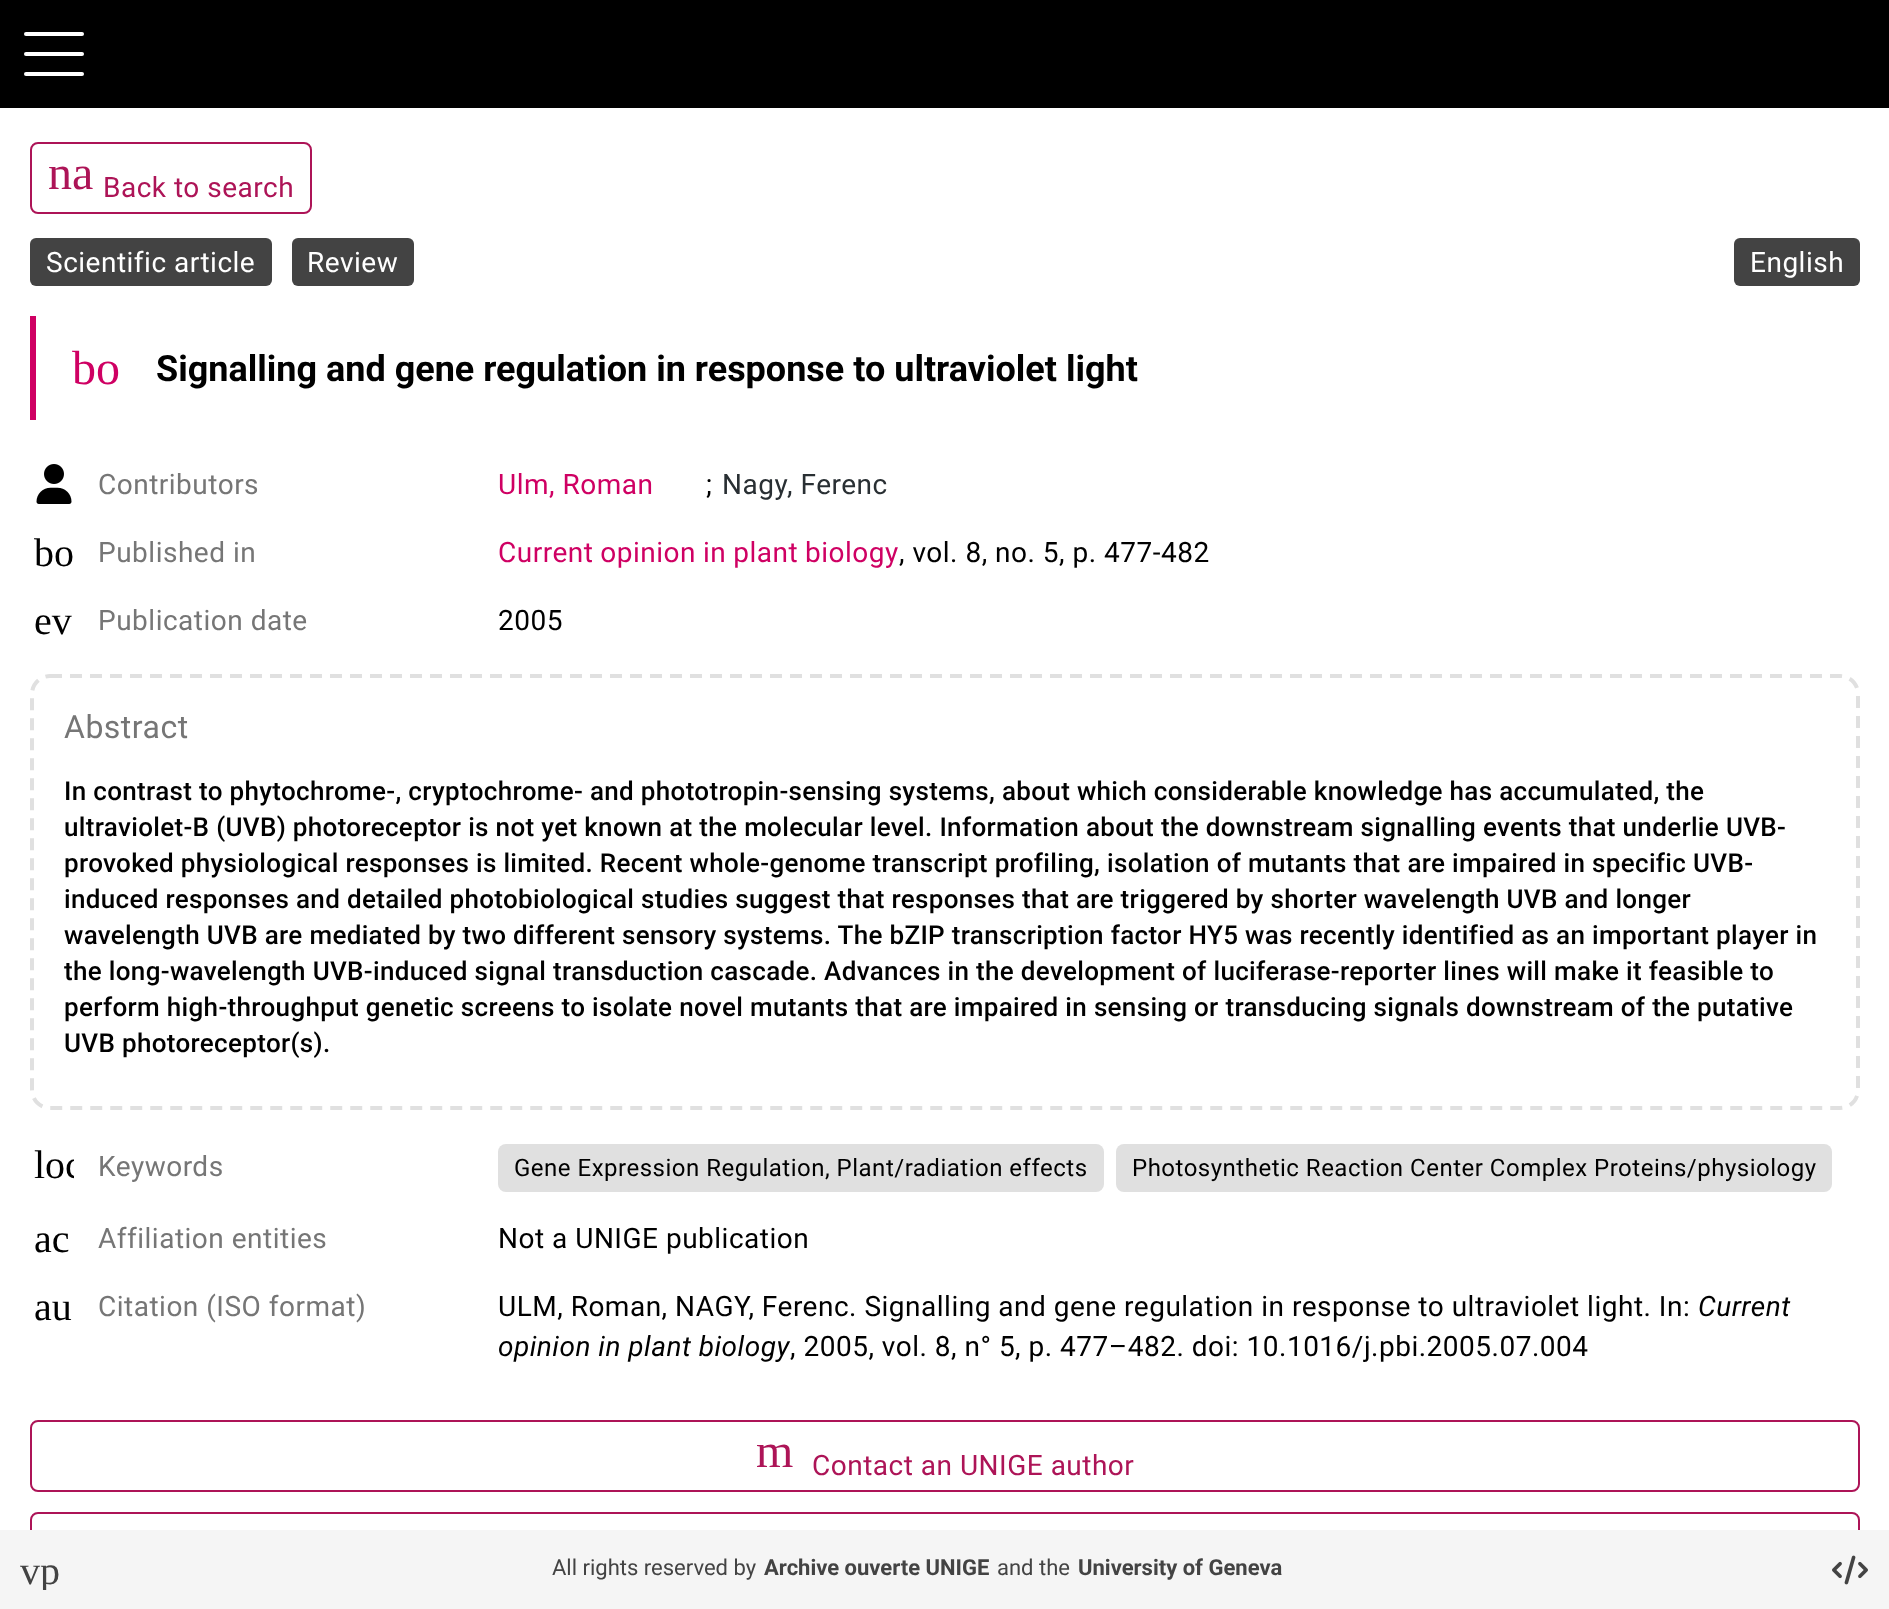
<svg xmlns="http://www.w3.org/2000/svg" width="1889" height="1609" viewBox="0 0 1889 1609">
  <defs>
    <clipPath id="clip1"><rect x="34" y="1144" width="40" height="40"/></clipPath>
    <clipPath id="clip2"><rect x="20" y="1550" width="40" height="40"/></clipPath>
  </defs>
  <rect width="100%" height="100%" fill="rgb(255,255,255)"/>
  <rect x="0" y="0" width="1889" height="108" fill="rgb(0,0,0)"/>
  <rect x="24" y="32" width="60" height="4" rx="2" fill="rgb(255,255,255)"/>
  <rect x="24" y="52" width="60" height="4" rx="2" fill="rgb(255,255,255)"/>
  <rect x="24" y="72" width="60" height="4" rx="2" fill="rgb(255,255,255)"/>
  <rect x="31" y="143" width="280" height="70" rx="7" fill="none" stroke="rgb(173,20,87)" stroke-width="2"/>
  <text x="48" y="189" font-family="Liberation Serif" font-size="48" fill="rgb(173,20,87)">na</text>
  <text x="103" y="197" font-family="Roboto" font-size="28" letter-spacing="0.5" fill="rgb(173,20,87)">Back to search</text>
  <rect x="30" y="238" width="242" height="48" rx="6" fill="rgb(67,67,67)"/>
  <text x="46" y="272" font-family="Roboto" font-size="28" letter-spacing="0.5" fill="rgb(255,255,255)">Scientific article</text>
  <rect x="292" y="238" width="122" height="48" rx="6" fill="rgb(67,67,67)"/>
  <text x="307" y="272" font-family="Roboto" font-size="28" letter-spacing="0.5" fill="rgb(255,255,255)">Review</text>
  <rect x="1734" y="238" width="126" height="48" rx="6" fill="rgb(67,67,67)"/>
  <text x="1750" y="272" font-family="Roboto" font-size="28" letter-spacing="0.5" fill="rgb(255,255,255)">English</text>
  <rect x="30" y="316" width="6" height="104" fill="rgb(207,0,99)"/>
  <text x="72" y="384" font-family="Liberation Serif" font-size="48" fill="rgb(207,0,99)">bo</text>
  <text x="156" y="381" font-family="Roboto" font-size="36" font-weight="bold" fill="rgb(0,0,0)">Signalling and gene regulation in response to ultraviolet light</text>
  <image x="36" y="464" width="36" height="40" href="pic1.png"/>
  <text x="98" y="494" font-family="Roboto" font-size="28" letter-spacing="0.5" fill="rgb(118,118,118)">Contributors</text>
  <text x="498" y="494" font-family="Roboto" font-size="28" letter-spacing="0.5" fill="rgb(207,0,99)">Ulm, Roman</text>
  <text x="706" y="494" font-family="Roboto" font-size="28" letter-spacing="0.5" fill="rgb(0,0,0)">;</text>
  <g font-family="Roboto" font-size="28" letter-spacing="0.5" fill="rgb(41,47,51)">
    <text x="722" y="494">Nagy</text>
    <text x="787" y="494">, Ferenc</text>
  </g>
  <text x="34" y="566" font-family="Liberation Serif" font-size="40" fill="rgb(0,0,0)">bo</text>
  <text x="98" y="562" font-family="Roboto" font-size="28" letter-spacing="0.5" fill="rgb(118,118,118)">Published in</text>
  <text x="498" y="562" word-spacing="-0.5" font-family="Roboto" font-size="28" letter-spacing="0.5" fill="rgb(207,0,99)">Current opinion in plant biology</text>
  <text x="899" y="562" font-family="Roboto" font-size="28" letter-spacing="0.5" fill="rgb(0,0,0)">, vol. 8, no. 5, p. 477-482</text>
  <text x="34" y="634" font-family="Liberation Serif" font-size="40" fill="rgb(0,0,0)">ev</text>
  <text x="98" y="630" font-family="Roboto" font-size="28" letter-spacing="0.5" fill="rgb(118,118,118)">Publication date</text>
  <text x="498" y="630" font-family="Roboto" font-size="28" letter-spacing="0.5" fill="rgb(0,0,0)">2005</text>
  <path d="M50 676H1840C1850 676 1858 684 1858 694V1090C1858 1100 1850 1108 1840 1108H50C40 1108 32 1100 32 1090V694C32 684 40 676 50 676Z" fill="none" stroke="rgb(224,224,224)" stroke-width="4" stroke-dasharray="12 8"/>
  <text x="64" y="738" font-family="Roboto" font-size="32" letter-spacing="0.5" fill="rgb(118,118,118)">Abstract</text>
  <g font-family="Roboto" font-size="26" font-weight="500" letter-spacing="0.33" fill="rgb(0,0,0)">
    <text>
      <tspan x="64" y="800">In contrast to phytochrome-, cryptochrome- and phototropin-sensing systems, about which considerable knowledge has accumulated, the</tspan>
      <tspan x="64" y="836">ultraviolet-B (UVB) photoreceptor is not yet known at the molecular level. Information about the downstream signalling events that underlie UVB-</tspan>
      <tspan x="64" y="872">provoked physiological responses is limited. Recent whole-genome transcript profiling, isolation of mutants that are impaired in specific UVB-</tspan>
      <tspan x="64" y="908">induced responses and detailed photobiological studies suggest that responses that are triggered by shorter wavelength UVB and longer</tspan>
      <tspan x="64" y="944">wavelength UVB are mediated by two different sensory systems. The bZIP transcription factor HY5 was recently identified as an important player in</tspan>
      <tspan x="64" y="980">the long-wavelength UVB-induced signal transduction cascade. Advances in the development of luciferase-reporter lines will make it feasible to</tspan>
      <tspan x="64" y="1016">perform high-throughput genetic screens to isolate novel mutants that are impaired in sensing or transducing signals downstream of the putative</tspan>
      <tspan x="64" y="1052">UVB photoreceptor(s).</tspan>
    </text>
  </g>
  <g clip-path="url(#clip1)">
    <text x="34" y="1178" font-family="Liberation Serif" font-size="40" fill="rgb(0,0,0)">loc</text>
  </g>
  <text x="98" y="1176" font-family="Roboto" font-size="28" letter-spacing="0.5" fill="rgb(118,118,118)">Keywords</text>
  <rect x="498" y="1144" width="606" height="48" rx="8" fill="rgb(224,224,224)"/>
  <text x="514" y="1176" font-family="Roboto" font-size="24" letter-spacing="0.5" fill="rgb(0,0,0)">Gene Expression Regulation, Plant/radiation effects</text>
  <rect x="1116" y="1144" width="716" height="48" rx="8" fill="rgb(224,224,224)"/>
  <text x="1132" y="1176" font-family="Roboto" font-size="24" letter-spacing="0.5" fill="rgb(0,0,0)">Photosynthetic Reaction Center Complex Proteins/physiology</text>
  <text x="34" y="1252" font-family="Liberation Serif" font-size="40" fill="rgb(0,0,0)">ac</text>
  <text x="98" y="1248" font-family="Roboto" font-size="28" letter-spacing="0.5" fill="rgb(118,118,118)">Affiliation entities</text>
  <text x="498" y="1248" font-family="Roboto" font-size="28" letter-spacing="0.5" fill="rgb(0,0,0)">Not a UNIGE publication</text>
  <text x="34" y="1320" font-family="Liberation Serif" font-size="40" fill="rgb(0,0,0)">au</text>
  <text x="98" y="1316" font-family="Roboto" font-size="28" letter-spacing="0.5" fill="rgb(118,118,118)">Citation (ISO format)</text>
  <text x="498" y="1316" font-family="Roboto" font-size="28" letter-spacing="0.5" fill="rgb(0,0,0)">ULM, Roman, NAGY, Ferenc. Signalling and gene regulation in response to ultraviolet light. In:</text>
  <g font-family="Roboto" font-size="28" font-style="italic" letter-spacing="0.5" fill="rgb(0,0,0)">
    <text x="1698" y="1316">Current</text>
    <text x="498" y="1356">opinion in plant biology</text>
  </g>
  <text x="790" y="1356" font-family="Roboto" font-size="28" letter-spacing="0.5" fill="rgb(0,0,0)">, 2005, vol. 8, n° 5, p. 477–482. doi: 10.1016/j.pbi.2005.07.004</text>
  <rect x="31" y="1421" width="1828" height="70" rx="7" fill="none" stroke="rgb(173,20,87)" stroke-width="2"/>
  <text x="756" y="1467" font-family="Liberation Serif" font-size="48" fill="rgb(173,20,87)">m</text>
  <text x="812" y="1475" font-family="Roboto" font-size="28" letter-spacing="0.5" fill="rgb(173,20,87)">Contact an UNIGE author</text>
  <rect x="31" y="1513" width="1828" height="70" rx="7" fill="none" stroke="rgb(173,20,87)" stroke-width="2"/>
  <rect x="0" y="1530" width="1889" height="79" fill="rgb(245,245,245)"/>
  <g clip-path="url(#clip2)">
    <text x="20" y="1584" font-family="Liberation Serif" font-size="40" fill="rgb(67,67,67)">vp</text>
  </g>
  <text x="552" y="1575" font-family="Roboto" font-size="22" fill="rgb(67,67,67)">All rights reserved by</text>
  <text x="764" y="1575" font-family="Roboto" font-size="22" font-weight="bold" fill="rgb(67,67,67)">Archive ouverte UNIGE</text>
  <text x="997" y="1575" font-family="Roboto" font-size="22" fill="rgb(67,67,67)">and the</text>
  <text x="1078" y="1575" font-family="Roboto" font-size="22" font-weight="bold" fill="rgb(67,67,67)">University of Geneva</text>
  <image x="1832" y="1555" width="36" height="30" href="pic2.png"/>
</svg>
